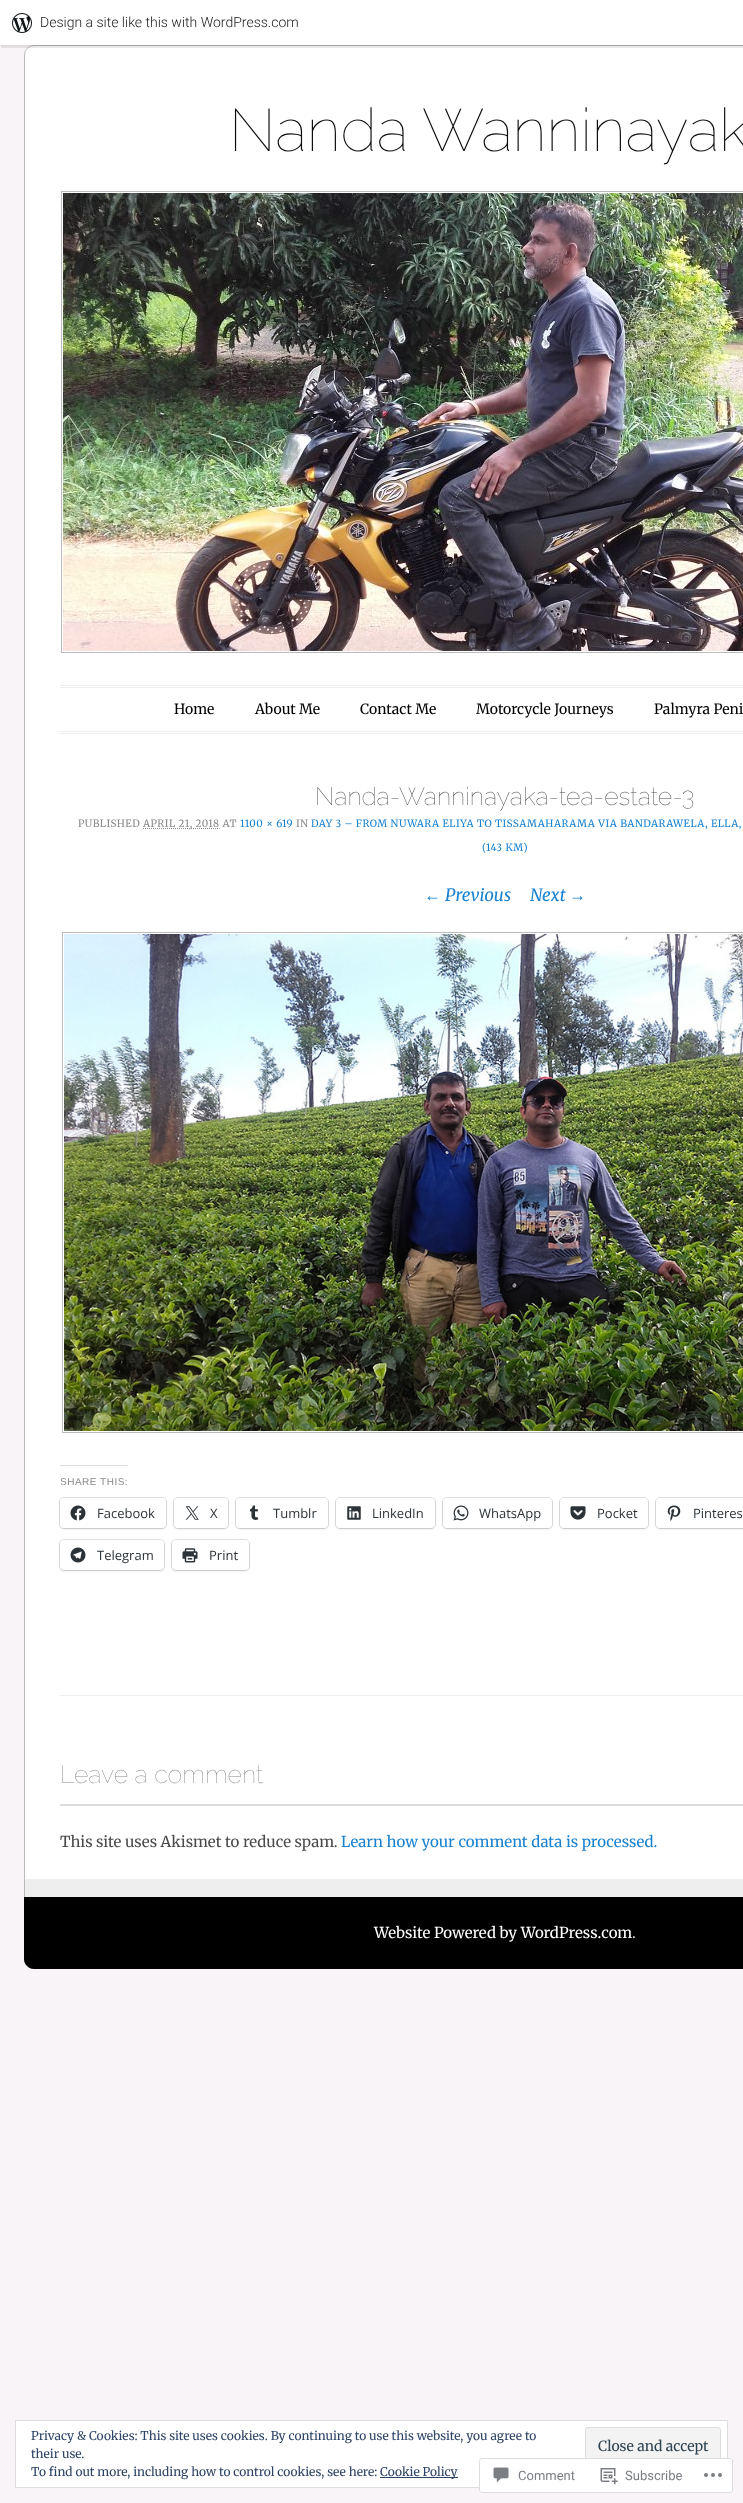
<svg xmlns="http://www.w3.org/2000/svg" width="743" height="2503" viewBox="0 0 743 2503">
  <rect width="100%" height="100%" fill="rgb(249,244,248)"/>
  <rect x="24.5" y="45.5" width="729" height="1923" rx="9.5" fill="rgb(255,255,255)" stroke="rgb(187,187,187)"/>
  <rect x="0" y="1" width="743" height="45" fill="rgba(0,0,0,0.05)" filter="blur(1px)"/>
  <path d="M1 45V48H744V3H743V45Z" fill="rgba(0,0,0,0.08)"/>
  <rect x="0" y="0" width="743" height="45" fill="rgb(255,255,255)"/>
  <image x="12" y="13" width="20" height="20" href="pic1.png"/>
  <text x="40" y="27" font-family="Roboto" font-size="14" font-weight="300" fill="rgb(23,23,23)">Design a site like this with WordPress.com</text>
  <text x="229" y="151" font-family="Raleway" font-size="60" font-weight="100" fill="rgb(12,13,13)">Nanda Wanninayak</text>
  <rect x="61.5" y="191.5" width="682" height="461" fill="none" stroke="rgb(187,187,187)"/>
  <image x="63" y="193" width="680" height="458" href="pic2.png"/>
  <rect x="60" y="685" width="683" height="1" fill="rgb(238,238,238)"/>
  <rect x="60" y="687" width="683" height="1" fill="rgb(238,238,238)"/>
  <rect x="60" y="731" width="683" height="1" fill="rgb(238,238,238)"/>
  <rect x="60" y="733" width="683" height="1" fill="rgb(238,238,238)"/>
  <g font-family="Merriweather" font-size="14" fill="rgb(0,0,0)">
    <text x="174" y="714">Home</text>
    <text x="255" y="714">About Me</text>
    <text x="360" y="714">Contact Me</text>
    <text x="476" y="714">Motorcycle Journeys</text>
    <text x="654" y="714">Palmyra Peni</text>
  </g>
  <rect x="25" y="1879" width="718" height="18" fill="rgb(238,238,238)"/>
  <text x="315" y="805" font-family="Raleway" font-size="25" font-weight="100" fill="rgb(74,74,74)">Nanda-Wanninayaka-tea-estate-3</text>
  <text x="78" y="827" font-family="Merriweather" font-size="10" letter-spacing="0.5" fill="rgb(138,138,138)">PUBLISHED</text>
  <path d="M143 828.5H219.5" fill="none" stroke="rgb(138,138,138)" stroke-dasharray="1 1"/>
  <text x="143" y="827" font-family="Merriweather" font-size="10" letter-spacing="0.5" fill="rgb(138,138,138)">APRIL 21, 2018 AT</text>
  <text x="240" y="827" font-family="Merriweather" font-size="10" letter-spacing="0.5" fill="rgb(25,130,209)">1100 × 619</text>
  <text x="296" y="827" font-family="Merriweather" font-size="10" letter-spacing="0.5" fill="rgb(138,138,138)">IN</text>
  <g font-family="Merriweather" font-size="10" letter-spacing="0.5" fill="rgb(25,130,209)">
    <text x="311" y="827">DAY 3 – FROM NUWARA ELIYA TO TISSAMAHARAMA VIA BANDARAWELA, ELLA,</text>
    <text x="482" y="851">(143 KM)</text>
  </g>
  <text x="424" y="901" font-family="Liberation Serif" font-size="17" font-style="italic" fill="rgb(25,130,209)">←</text>
  <g font-family="Merriweather" font-size="17" font-style="italic" fill="rgb(25,130,209)">
    <text x="445" y="901">Previous</text>
    <text x="530" y="901">Next</text>
  </g>
  <text x="569" y="901" font-family="Liberation Serif" font-size="17" font-style="italic" fill="rgb(25,130,209)">→</text>
  <rect x="62.5" y="932.5" width="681" height="500" fill="none" stroke="rgb(187,187,187)"/>
  <image x="64" y="934" width="679" height="497" href="pic3.png"/>
  <rect x="60" y="1465" width="68" height="1" fill="rgb(220,220,222)"/>
  <text x="60" y="1485" font-family="Liberation Sans" font-size="10" letter-spacing="0.5" fill="rgb(138,138,138)">SHARE THIS:</text>
  <rect x="59.5" y="1497.5" width="107" height="31" rx="4.5" fill="none" stroke="rgb(224,224,224)"/>
  <rect x="60" y="1499" width="106" height="30" rx="4" fill="rgba(0,0,0,0.12)" filter="blur(1px)"/>
  <rect x="60" y="1498" width="106" height="30" rx="4" fill="rgb(255,255,255)"/>
  <image x="70" y="1505" width="16" height="16" href="pic4.png"/>
  <text x="97" y="1518" font-family="Open Sans" font-size="13" fill="rgb(44,51,56)">Facebook</text>
  <rect x="173.5" y="1497.5" width="55" height="31" rx="4.5" fill="none" stroke="rgb(224,224,224)"/>
  <rect x="174" y="1499" width="54" height="30" rx="4" fill="rgba(0,0,0,0.12)" filter="blur(1px)"/>
  <rect x="174" y="1498" width="54" height="30" rx="4" fill="rgb(255,255,255)"/>
  <image x="185" y="1506" width="14" height="14" href="pic5.png"/>
  <text x="210" y="1518" font-family="Open Sans" font-size="13" fill="rgb(44,51,56)">X</text>
  <rect x="235.5" y="1497.5" width="93" height="31" rx="4.5" fill="none" stroke="rgb(224,224,224)"/>
  <rect x="236" y="1499" width="92" height="30" rx="4" fill="rgba(0,0,0,0.12)" filter="blur(1px)"/>
  <rect x="236" y="1498" width="92" height="30" rx="4" fill="rgb(255,255,255)"/>
  <image x="249" y="1505" width="10" height="15" href="pic6.png"/>
  <text x="273" y="1518" font-family="Open Sans" font-size="13" fill="rgb(44,51,56)">Tumblr</text>
  <rect x="335.5" y="1497.5" width="100" height="31" rx="4.5" fill="none" stroke="rgb(224,224,224)"/>
  <rect x="336" y="1499" width="99" height="30" rx="4" fill="rgba(0,0,0,0.12)" filter="blur(1px)"/>
  <rect x="336" y="1498" width="99" height="30" rx="4" fill="rgb(255,255,255)"/>
  <image x="347" y="1506" width="14" height="14" href="pic7.png"/>
  <text x="372" y="1518" font-family="Open Sans" font-size="13" fill="rgb(44,51,56)">LinkedIn</text>
  <rect x="442.5" y="1497.5" width="110" height="31" rx="4.5" fill="none" stroke="rgb(224,224,224)"/>
  <rect x="443" y="1499" width="109" height="30" rx="4" fill="rgba(0,0,0,0.12)" filter="blur(1px)"/>
  <rect x="443" y="1498" width="109" height="30" rx="4" fill="rgb(255,255,255)"/>
  <image x="453" y="1505" width="16" height="16" href="pic8.png"/>
  <text x="479" y="1518" font-family="Open Sans" font-size="13" fill="rgb(44,51,56)">WhatsApp</text>
  <rect x="559.5" y="1497.5" width="89" height="31" rx="4.5" fill="none" stroke="rgb(224,224,224)"/>
  <rect x="560" y="1499" width="88" height="30" rx="4" fill="rgba(0,0,0,0.12)" filter="blur(1px)"/>
  <rect x="560" y="1498" width="88" height="30" rx="4" fill="rgb(255,255,255)"/>
  <image x="570" y="1506" width="16" height="14" href="pic9.png"/>
  <text x="597" y="1518" font-family="Open Sans" font-size="13" fill="rgb(44,51,56)">Pocket</text>
  <rect x="655.5" y="1497.5" width="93" height="31" rx="4.5" fill="none" stroke="rgb(224,224,224)"/>
  <rect x="656" y="1499" width="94" height="30" rx="4" fill="rgba(0,0,0,0.12)" filter="blur(1px)"/>
  <rect x="656" y="1498" width="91" height="30" rx="4" fill="rgb(255,255,255)"/>
  <image x="667" y="1505" width="14" height="16" href="pic10.png"/>
  <text x="693" y="1518" font-family="Open Sans" font-size="13" fill="rgb(44,51,56)">Pinteres</text>
  <rect x="59.5" y="1539.5" width="105" height="31" rx="4.5" fill="none" stroke="rgb(224,224,224)"/>
  <rect x="60" y="1541" width="104" height="30" rx="4" fill="rgba(0,0,0,0.12)" filter="blur(1px)"/>
  <rect x="60" y="1540" width="104" height="30" rx="4" fill="rgb(255,255,255)"/>
  <image x="70" y="1547" width="16" height="16" href="pic11.png"/>
  <text x="97" y="1560" font-family="Open Sans" font-size="13" fill="rgb(44,51,56)">Telegram</text>
  <rect x="171.5" y="1539.5" width="78" height="31" rx="4.5" fill="none" stroke="rgb(224,224,224)"/>
  <rect x="172" y="1541" width="77" height="30" rx="4" fill="rgba(0,0,0,0.12)" filter="blur(1px)"/>
  <rect x="172" y="1540" width="77" height="30" rx="4" fill="rgb(255,255,255)"/>
  <image x="182" y="1548" width="16" height="15" href="pic12.png"/>
  <text x="209" y="1560" font-family="Open Sans" font-size="13" fill="rgb(44,51,56)">Print</text>
  <rect x="60" y="1695" width="683" height="1" fill="rgb(238,238,238)"/>
  <text x="60" y="1783" font-family="Raleway" font-size="25" font-weight="100" fill="rgb(138,138,138)">Leave a comment</text>
  <rect x="60" y="1804" width="683" height="2" fill="rgb(220,220,222)"/>
  <text x="60" y="1847" font-family="Merriweather" font-size="15" fill="rgb(74,74,74)">This site uses Akismet to reduce spam.</text>
  <text x="341" y="1847" font-family="Merriweather" font-size="15" fill="rgb(25,130,209)">Learn how your comment data is processed.</text>
  <path d="M24 1897H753V1959C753 1964.5 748.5 1969 743 1969H34C28.5 1969 24 1964.5 24 1959Z" fill="rgb(0,0,0)"/>
  <text x="374" y="1938" font-family="Merriweather" font-size="15" fill="rgb(255,255,255)">Website Powered by WordPress.com</text>
  <text x="632" y="1938" font-family="Merriweather" font-size="15" fill="rgb(204,204,204)">.</text>
  <rect x="15.5" y="2420.5" width="712" height="67" fill="rgb(255,255,255)" stroke="rgb(222,222,222)"/>
  <g font-family="Merriweather" font-size="12" fill="rgb(46,68,103)">
    <text>
      <tspan x="31" y="2440">Privacy &amp; Cookies: This site uses cookies. By continuing to use this website, you agree to</tspan>
      <tspan x="31" y="2458">their use.</tspan>
    </text>
  </g>
  <rect x="585.5" y="2427.5" width="135" height="38" rx="2.5" fill="rgb(243,243,243)" stroke="rgb(222,222,222)"/>
  <text x="598" y="2451" font-family="Merriweather" font-size="14" fill="rgb(46,68,83)">Close and accept</text>
  <text x="31" y="2476" font-family="Merriweather" font-size="12" fill="rgb(46,68,103)">To find out more, including how to control cookies, see here:</text>
  <rect x="380" y="2477" width="78" height="1" fill="rgb(46,68,103)"/>
  <text x="380" y="2476" font-family="Merriweather" font-size="12" fill="rgb(46,68,103)">Cookie Policy</text>
  <rect x="479" y="2458" width="254" height="35" rx="3" fill="rgba(255,255,255,0.98)"/>
  <rect x="479.5" y="2458.5" width="253" height="34" rx="2.5" fill="none" stroke="rgba(220,220,222,0.98)"/>
  <image x="493" y="2467" width="16" height="16" href="pic13.png"/>
  <text x="518" y="2480" font-family="Roboto" font-size="13" fill="rgb(123,127,133)">Comment</text>
  <image x="600" y="2468" width="18" height="17" href="pic14.png"/>
  <text x="625" y="2480" font-family="Roboto" font-size="13" fill="rgb(123,127,133)">Subscribe</text>
  <image x="704" y="2473" width="18" height="4" href="pic15.png"/>
</svg>
